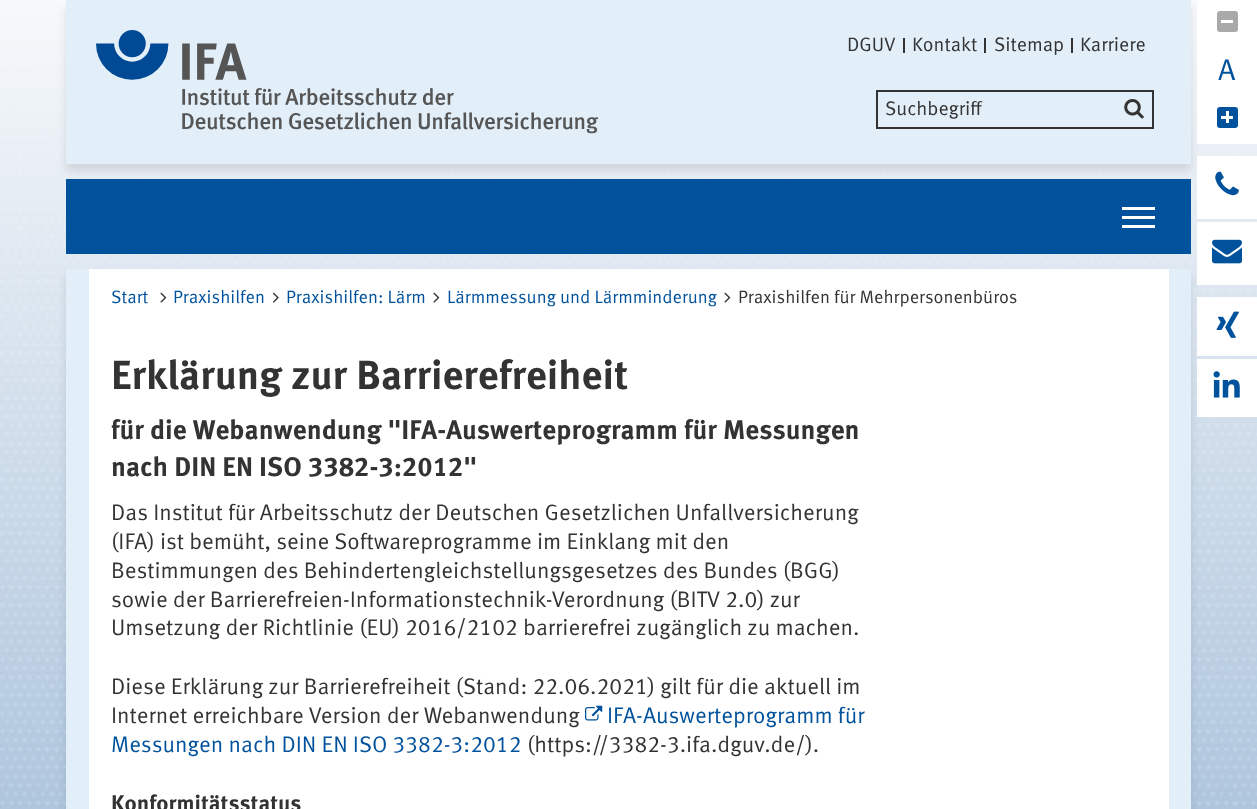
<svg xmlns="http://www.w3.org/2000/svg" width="1257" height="809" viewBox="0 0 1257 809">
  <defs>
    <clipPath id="clip1"><rect x="885" y="101" width="233" height="19"/></clipPath>
  </defs>
  <rect width="100%" height="100%" fill="rgb(255,255,255)"/>
  <image x="0" y="0" width="1257" height="809" href="pic1.png"/>
  <rect x="66" y="8" width="1125" height="163" fill="rgba(0,0,0,0.1)" filter="blur(4px)"/>
  <rect x="66" y="0" width="1125" height="164" fill="rgb(226,238,248)"/>
  <image x="96" y="30" width="503" height="104" href="pic2.png"/>
  <rect x="903" y="38" width="2" height="15" fill="rgb(51,51,51)"/>
  <text x="847" y="51" font-family="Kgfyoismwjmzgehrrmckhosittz" font-size="19.5" fill="rgb(51,51,51)">DGUV</text>
  <rect x="984" y="38" width="2" height="15" fill="rgb(51,51,51)"/>
  <text x="912" y="51" font-family="Kgfyoismwjmzgehrrmckhosittz" font-size="19.5" fill="rgb(51,51,51)">Kontakt</text>
  <rect x="1071" y="38" width="2" height="15" fill="rgb(51,51,51)"/>
  <g font-family="Kgfyoismwjmzgehrrmckhosittz" font-size="19.5" fill="rgb(51,51,51)">
    <text x="994" y="51">Sitemap</text>
    <text x="1080" y="51">Karriere</text>
  </g>
  <rect x="1197" y="0" width="60" height="144" fill="rgb(255,255,255)"/>
  <rect x="1217" y="11" width="21" height="21" rx="3" fill="rgb(169,169,169)"/>
  <rect x="1221" y="20" width="12" height="3" fill="rgb(255,255,255)"/>
  <text x="1218" y="80" font-family="Kgfyoismwjmzgehrrmckhosittz" font-size="30" fill="rgb(0,82,156)">A</text>
  <rect x="1217" y="107" width="21" height="21" rx="3" fill="rgb(0,82,156)"/>
  <rect x="1221" y="116" width="12" height="3" fill="rgb(255,255,255)"/>
  <rect x="1226" y="111" width="3" height="12" fill="rgb(255,255,255)"/>
  <rect x="1197" y="156" width="60" height="63" fill="rgb(255,255,255)"/>
  <image x="1215" y="171" width="24" height="25" href="pic3.png"/>
  <rect x="66" y="276" width="1125" height="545" fill="rgba(0,0,0,0.1)" filter="blur(4px)"/>
  <rect x="1197" y="222" width="60" height="63" fill="rgb(255,255,255)"/>
  <image x="1212" y="239" width="30" height="25" href="pic4.png"/>
  <rect x="1197" y="297" width="60" height="59" fill="rgb(255,255,255)"/>
  <image x="1216" y="311" width="23" height="27" href="pic5.png"/>
  <rect x="1197" y="359" width="60" height="58" fill="rgb(255,255,255)"/>
  <image x="1213" y="371" width="27" height="27" href="pic6.png"/>
  <rect x="877" y="91" width="276" height="37" fill="none" stroke="rgb(51,51,51)" stroke-width="2"/>
  <g clip-path="url(#clip1)">
    <text x="885" y="115" font-family="Kgfyoismwjmzgehrrmckhosittz" font-size="19.5" fill="rgb(51,51,51)">Suchbegriff</text>
  </g>
  <image x="1124" y="99" width="20" height="20" href="pic7.png"/>
  <rect x="66" y="179" width="1125" height="75" fill="rgb(0,82,156)"/>
  <rect x="1122" y="216" width="33" height="3" fill="rgb(255,255,255)"/>
  <rect x="1122" y="207" width="33" height="3" fill="rgb(255,255,255)"/>
  <rect x="1122" y="225" width="33" height="3" fill="rgb(255,255,255)"/>
  <rect x="66" y="269" width="1125" height="540" fill="rgb(226,238,248)"/>
  <rect x="89" y="269" width="1080" height="540" fill="rgb(255,255,255)"/>
  <text x="111" y="303" font-family="Kgfyoismwjmzgehrrmckhosittz" font-size="18" fill="rgb(0,82,156)">Start</text>
  <image x="160" y="292" width="7" height="11" href="pic8.png"/>
  <text x="173" y="303" font-family="Kgfyoismwjmzgehrrmckhosittz" font-size="18" fill="rgb(0,82,156)">Praxishilfen</text>
  <image x="273" y="292" width="6" height="11" href="pic9.png"/>
  <text x="286" y="303" font-family="Kgfyoismwjmzgehrrmckhosittz" font-size="18" fill="rgb(0,82,156)">Praxishilfen: Lärm</text>
  <image x="433" y="292" width="7" height="11" href="pic8.png"/>
  <text x="447" y="303" font-family="Kgfyoismwjmzgehrrmckhosittz" font-size="18" fill="rgb(0,82,156)">Lärmmessung und Lärmminderung</text>
  <image x="724" y="292" width="7" height="11" href="pic8.png"/>
  <text x="738" y="303" font-family="Kgfyoismwjmzgehrrmckhosittz" font-size="18" fill="rgb(51,51,51)">Praxishilfen für Mehrpersonenbüros</text>
  <text x="111" y="389" font-family="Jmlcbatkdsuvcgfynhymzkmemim" font-size="40.5" font-weight="bold" fill="rgb(51,51,51)">Erklärung zur Barrierefreiheit</text>
  <g font-family="Jmlcbatkdsuvcgfynhymzkmemim" font-size="27" font-weight="bold" fill="rgb(51,51,51)">
    <text>
      <tspan x="111" y="439">für die Webanwendung "IFA-Auswerteprogramm für Messungen</tspan>
      <tspan x="111" y="476">nach DIN EN ISO 3382-3:2012"</tspan>
    </text>
  </g>
  <g font-family="Kgfyoismwjmzgehrrmckhosittz" font-size="22.5" fill="rgb(51,51,51)">
    <text>
      <tspan x="111" y="520">Das Institut für Arbeitsschutz der Deutschen Gesetzlichen Unfallversicherung</tspan>
      <tspan x="111" y="549">(IFA) ist bemüht, seine Softwareprogramme im Einklang mit den</tspan>
      <tspan x="111" y="578">Bestimmungen des Behindertengleichstellungsgesetzes des Bundes (BGG)</tspan>
      <tspan x="111" y="607">sowie der Barrierefreien-Informationstechnik-Verordnung (BITV 2.0) zur</tspan>
      <tspan x="111" y="635">Umsetzung der Richtlinie (EU) 2016/2102 barrierefrei zugänglich zu machen.</tspan>
    </text>
    <text x="111" y="694">Diese Erklärung zur Barrierefreiheit (Stand: 22.06.2021) gilt für die aktuell im</text>
  </g>
  <image x="585" y="705" width="18" height="16" href="pic10.png"/>
  <g font-family="Kgfyoismwjmzgehrrmckhosittz" font-size="22.5" fill="rgb(0,82,156)">
    <text x="607" y="723">IFA-Auswerteprogramm für</text>
    <text x="111" y="752">Messungen nach DIN EN ISO 3382-3:2012</text>
  </g>
  <g font-family="Kgfyoismwjmzgehrrmckhosittz" font-size="22.5" fill="rgb(51,51,51)">
    <text x="111" y="723">Internet erreichbare Version der Webanwendung</text>
    <text x="527" y="752">(https://3382-3.ifa.dguv.de/).</text>
  </g>
  <text x="111" y="811" font-family="Jmlcbatkdsuvcgfynhymzkmemim" font-size="22.5" font-weight="bold" fill="rgb(51,51,51)">Konformitätsstatus</text>
</svg>
